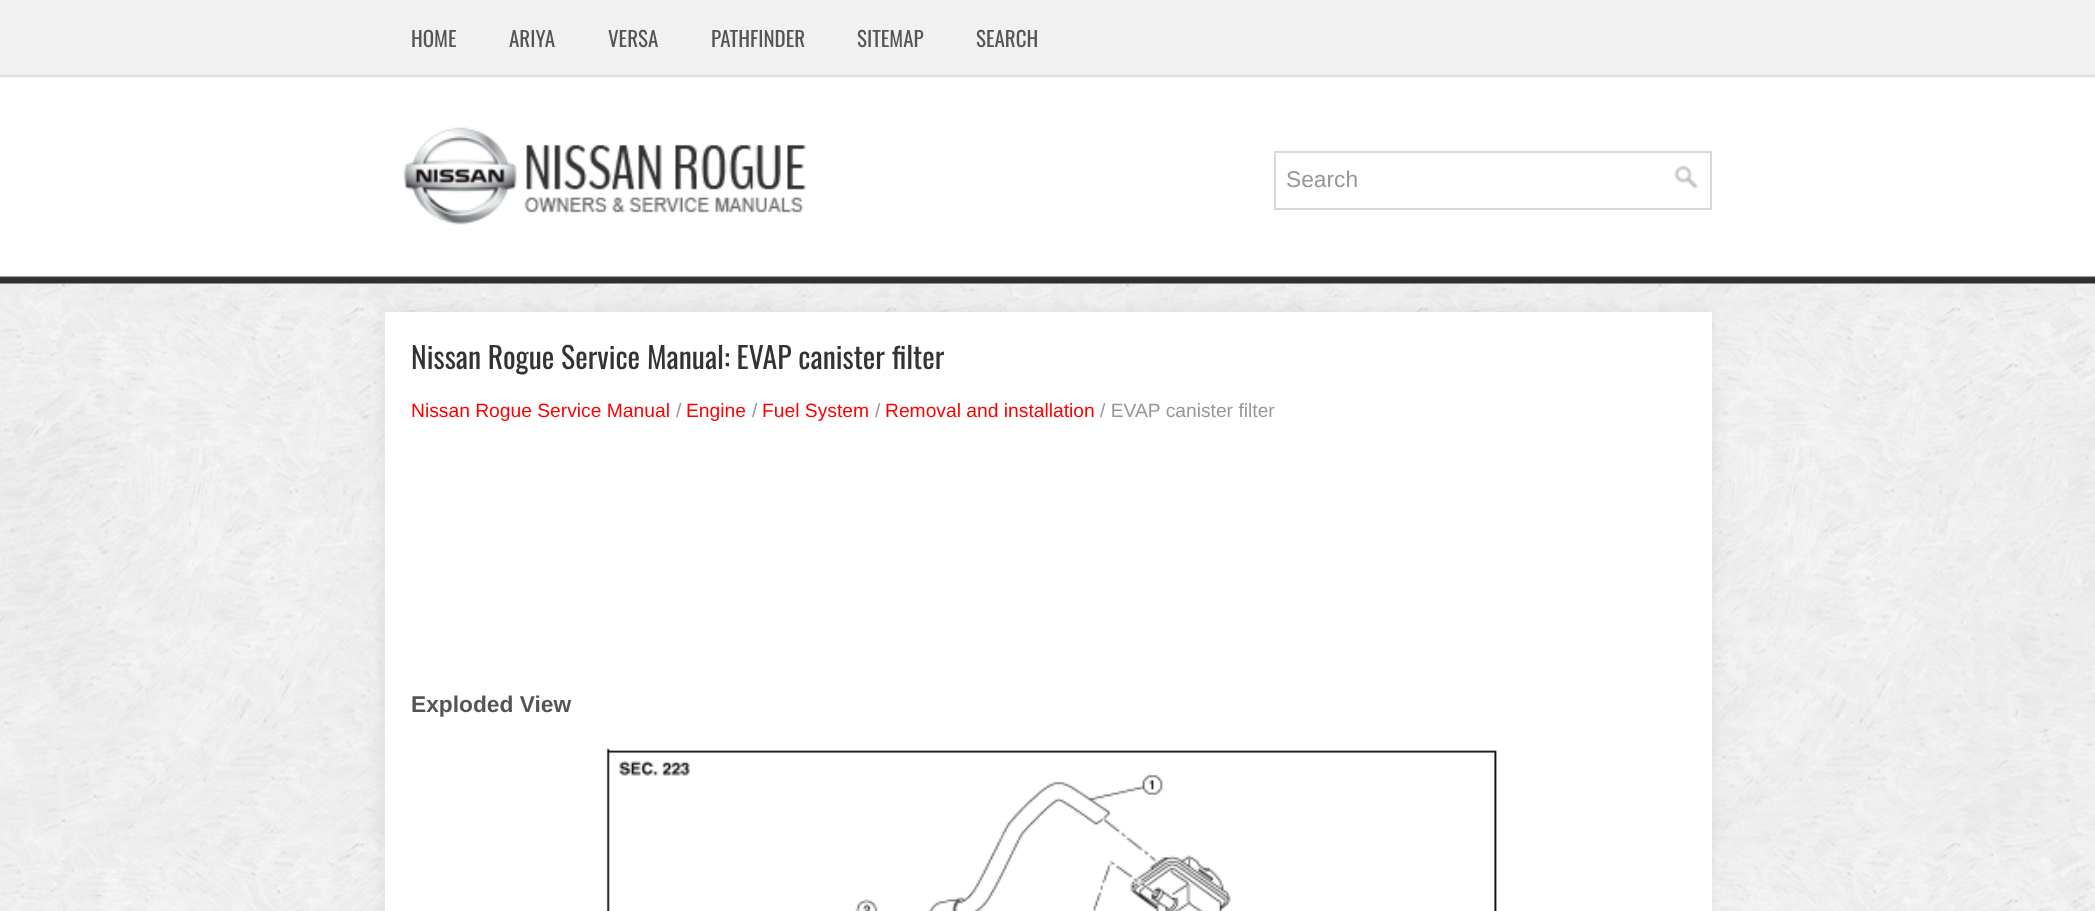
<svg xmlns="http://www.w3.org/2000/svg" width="2095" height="911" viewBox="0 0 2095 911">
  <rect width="100%" height="100%" fill="rgb(255,255,255)"/>
  <image x="0" y="0" width="2095" height="911" href="pic1.png"/>
  <g font-family="Oswald" font-size="21" fill="rgb(85,85,85)">
    <text x="411" y="47">HOME</text>
    <text x="509" y="47">ARIYA</text>
    <text x="608" y="47">VERSA</text>
    <text x="711" y="47">PATHFINDER</text>
    <text x="857" y="47">SITEMAP</text>
    <text x="976" y="47">SEARCH</text>
  </g>
  <image x="403" y="127" width="403" height="98" href="pic2.png"/>
  <rect x="1275" y="152" width="436" height="57" fill="none" stroke="rgb(216,216,216)" stroke-width="2"/>
  <text x="1286" y="187" font-family="Liberation Sans" font-size="22.75" fill="rgb(151,151,151)">Search</text>
  <image x="1674" y="165" width="24" height="24" href="pic3.png"/>
  <rect x="383" y="310" width="1330" height="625" fill="rgba(96,96,96,0.1)" filter="blur(8px)"/>
  <rect x="385" y="312" width="1327" height="599" fill="rgb(255,255,255)"/>
  <text x="411" y="369" font-family="Oswald" font-size="29.75" fill="rgb(51,51,51)">Nissan Rogue Service Manual: EVAP canister filter</text>
  <text x="411" y="417" font-family="Liberation Sans" font-size="19.25" fill="rgb(255,0,0)">Nissan Rogue Service Manual</text>
  <text x="676" y="417" font-family="Liberation Sans" font-size="19.25" fill="rgb(151,151,151)">/</text>
  <text x="686" y="417" font-family="Liberation Sans" font-size="19.25" fill="rgb(255,0,0)">Engine</text>
  <text x="752" y="417" font-family="Liberation Sans" font-size="19.25" fill="rgb(151,151,151)">/</text>
  <text x="762" y="417" font-family="Liberation Sans" font-size="19.25" fill="rgb(255,0,0)">Fuel System</text>
  <text x="875" y="417" font-family="Liberation Sans" font-size="19.25" fill="rgb(151,151,151)">/</text>
  <text x="885" y="417" font-family="Liberation Sans" font-size="19.25" fill="rgb(255,0,0)">Removal and installation</text>
  <text x="1100" y="417" font-family="Liberation Sans" font-size="19.25" fill="rgb(151,151,151)">/ EVAP canister filter</text>
  <text x="411" y="712" font-family="Liberation Sans" font-size="22.75" font-weight="bold" fill="rgb(85,85,85)">Exploded View</text>
  <image x="606" y="748" width="891" height="163" href="pic4.png"/>
</svg>
